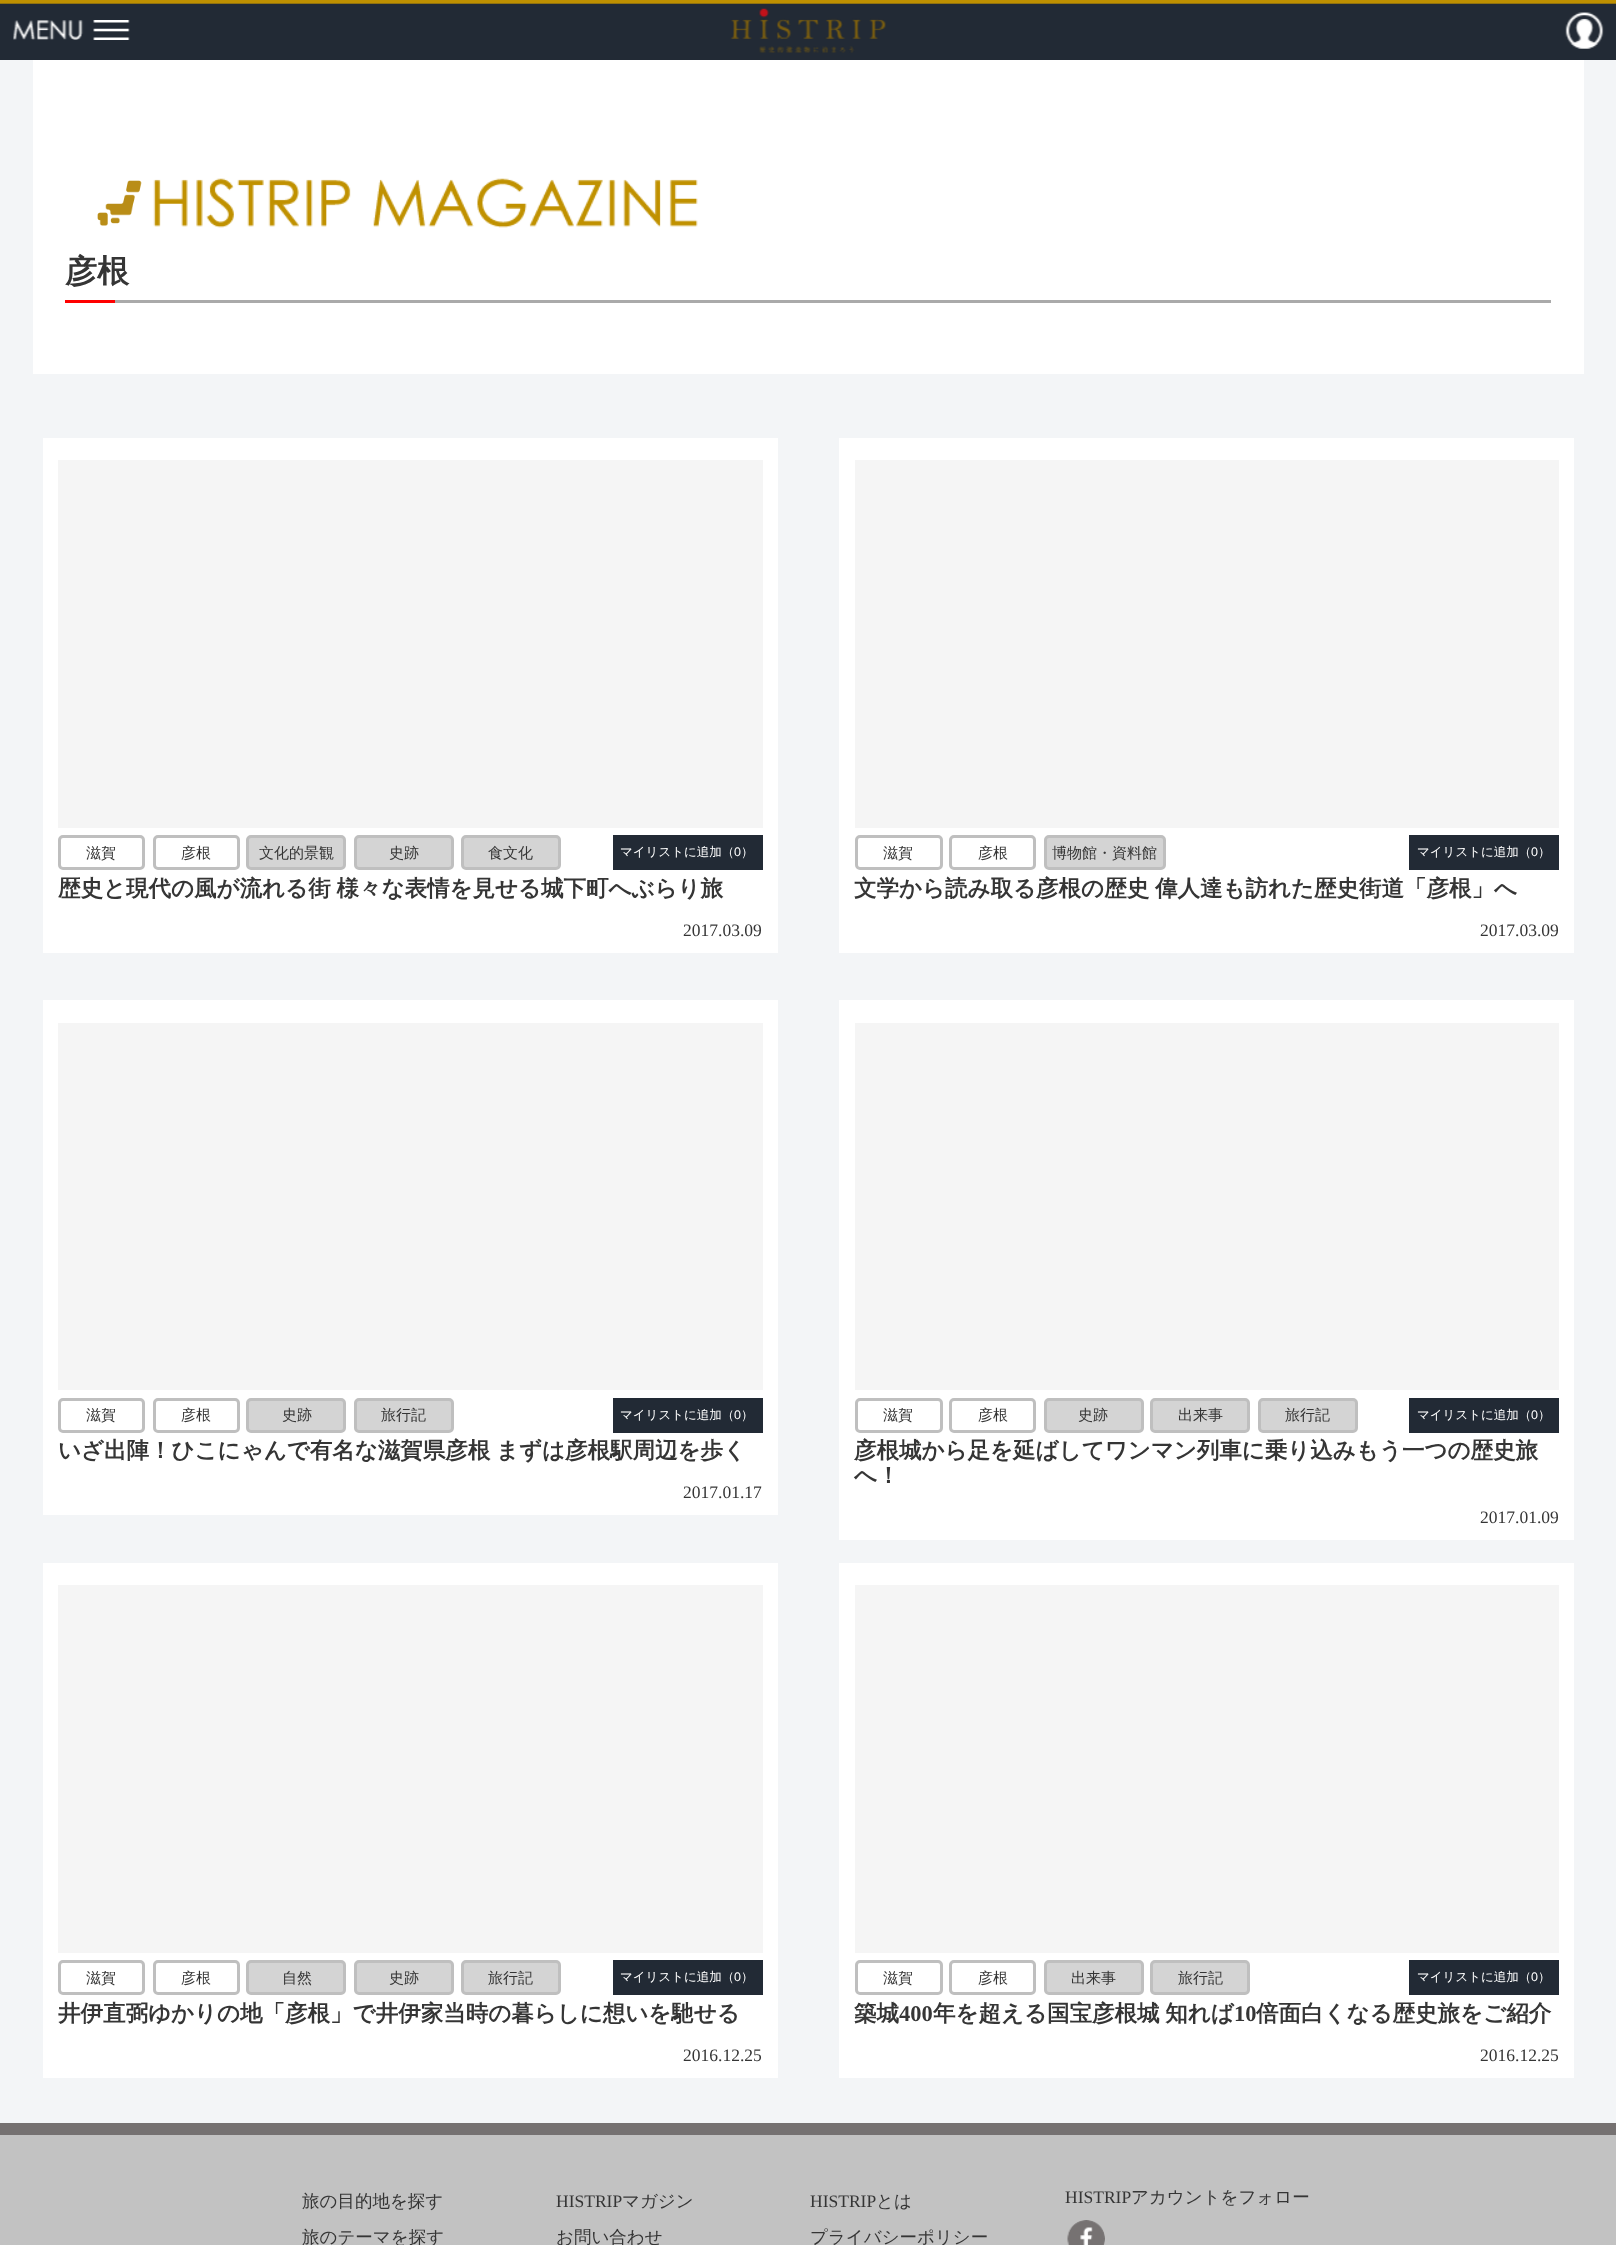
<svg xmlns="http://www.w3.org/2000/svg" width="1616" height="2245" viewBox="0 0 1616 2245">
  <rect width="100%" height="100%" fill="rgb(243,245,247)"/>
  <image x="0" y="0" width="1616" height="60" href="pic1.png"/>
  <image x="13" y="20" width="117" height="20" href="pic2.png"/>
  <image x="730" y="8" width="156" height="45" href="pic3.png"/>
  <image x="1565" y="12" width="39" height="37" href="pic4.png"/>
  <rect x="33" y="60" width="1551" height="314" fill="rgb(255,255,255)"/>
  <image x="97" y="180" width="45" height="46" href="pic5.png"/>
  <image x="153" y="178" width="545" height="50" href="pic6.png"/>
  <rect x="115" y="300" width="1436" height="3" fill="rgb(170,170,170)"/>
  <text x="65" y="282" font-family="WenQuanYi Zen Hei" font-size="32" font-weight="bold" fill="rgb(53,53,53)">彦根</text>
  <rect x="65" y="300" width="50" height="3" fill="rgb(255,0,0)"/>
  <rect x="43" y="438" width="735" height="515" fill="rgb(255,255,255)"/>
  <rect x="58" y="460" width="705" height="368" fill="rgb(245,245,245)"/>
  <rect x="59.5" y="836.5" width="84" height="32" rx="3.5" fill="none" stroke="rgb(191,191,191)" stroke-width="3"/>
  <text x="86" y="858" font-family="WenQuanYi Zen Hei" font-size="15" font-weight="500" fill="rgb(53,53,53)">滋賀</text>
  <rect x="154.5" y="836.5" width="84" height="32" rx="3.5" fill="none" stroke="rgb(191,191,191)" stroke-width="3"/>
  <text x="181" y="858" font-family="WenQuanYi Zen Hei" font-size="15" font-weight="500" fill="rgb(53,53,53)">彦根</text>
  <rect x="247.5" y="836.5" width="97" height="32" rx="3.5" fill="rgb(212,212,212)" stroke="rgb(191,191,191)" stroke-width="3"/>
  <text x="259" y="858" font-family="WenQuanYi Zen Hei" font-size="15" font-weight="500" fill="rgb(53,53,53)">文化的景観</text>
  <rect x="355.5" y="836.5" width="97" height="32" rx="3.5" fill="rgb(212,212,212)" stroke="rgb(191,191,191)" stroke-width="3"/>
  <text x="389" y="858" font-family="WenQuanYi Zen Hei" font-size="15" font-weight="500" fill="rgb(53,53,53)">史跡</text>
  <rect x="462.5" y="836.5" width="97" height="32" rx="3.5" fill="rgb(212,212,212)" stroke="rgb(191,191,191)" stroke-width="3"/>
  <text x="488" y="858" font-family="WenQuanYi Zen Hei" font-size="15" font-weight="500" fill="rgb(53,53,53)">食文化</text>
  <rect x="613" y="835" width="150" height="35" fill="rgb(34,42,53)"/>
  <text x="620" y="856" font-family="WenQuanYi Zen Hei" font-size="12.5" font-weight="500" fill="rgb(255,255,255)">マイリストに追加（</text>
  <text x="734" y="856" font-family="Liberation Sans" font-size="12.5" fill="rgb(255,255,255)">0</text>
  <text x="741" y="856" font-family="WenQuanYi Zen Hei" font-size="12.5" font-weight="500" fill="rgb(255,255,255)">）</text>
  <text x="58" y="896" word-spacing="-1" font-family="WenQuanYi Zen Hei" font-size="22.5" font-weight="bold" fill="rgb(53,53,53)">歴史と現代の風が流れる街 様々な表情を見せる城下町へぶらり旅</text>
  <text x="683" y="936" font-family="Liberation Serif" font-size="17.5" fill="rgb(53,53,53)">2017.03.09</text>
  <rect x="839" y="438" width="735" height="515" fill="rgb(255,255,255)"/>
  <rect x="855" y="460" width="704" height="368" fill="rgb(245,245,245)"/>
  <rect x="856.5" y="836.5" width="85" height="32" rx="3.5" fill="none" stroke="rgb(191,191,191)" stroke-width="3"/>
  <text x="883" y="858" font-family="WenQuanYi Zen Hei" font-size="15" font-weight="500" fill="rgb(53,53,53)">滋賀</text>
  <rect x="950.5" y="836.5" width="84" height="32" rx="3.5" fill="none" stroke="rgb(191,191,191)" stroke-width="3"/>
  <text x="978" y="858" font-family="WenQuanYi Zen Hei" font-size="15" font-weight="500" fill="rgb(53,53,53)">彦根</text>
  <rect x="1045.5" y="836.5" width="119" height="32" rx="3.5" fill="rgb(212,212,212)" stroke="rgb(191,191,191)" stroke-width="3"/>
  <text x="1052" y="858" font-family="WenQuanYi Zen Hei" font-size="15" font-weight="500" fill="rgb(53,53,53)">博物館・資料館</text>
  <rect x="1409" y="835" width="150" height="35" fill="rgb(34,42,53)"/>
  <text x="1417" y="856" font-family="WenQuanYi Zen Hei" font-size="12.5" font-weight="500" fill="rgb(255,255,255)">マイリストに追加（</text>
  <text x="1531" y="856" font-family="Liberation Sans" font-size="12.5" fill="rgb(255,255,255)">0</text>
  <text x="1538" y="856" font-family="WenQuanYi Zen Hei" font-size="12.5" font-weight="500" fill="rgb(255,255,255)">）</text>
  <text x="854" y="896" word-spacing="-1" font-family="WenQuanYi Zen Hei" font-size="22.5" font-weight="bold" fill="rgb(53,53,53)">文学から読み取る彦根の歴史 偉人達も訪れた歴史街道「彦根」へ</text>
  <text x="1480" y="936" font-family="Liberation Serif" font-size="17.5" fill="rgb(53,53,53)">2017.03.09</text>
  <rect x="43" y="1000" width="735" height="515" fill="rgb(255,255,255)"/>
  <rect x="58" y="1023" width="705" height="367" fill="rgb(245,245,245)"/>
  <rect x="59.5" y="1399.5" width="84" height="32" rx="3.5" fill="none" stroke="rgb(191,191,191)" stroke-width="3"/>
  <text x="86" y="1420" font-family="WenQuanYi Zen Hei" font-size="15" font-weight="500" fill="rgb(53,53,53)">滋賀</text>
  <rect x="154.5" y="1399.5" width="84" height="32" rx="3.5" fill="none" stroke="rgb(191,191,191)" stroke-width="3"/>
  <text x="181" y="1420" font-family="WenQuanYi Zen Hei" font-size="15" font-weight="500" fill="rgb(53,53,53)">彦根</text>
  <rect x="247.5" y="1399.5" width="97" height="32" rx="3.5" fill="rgb(212,212,212)" stroke="rgb(191,191,191)" stroke-width="3"/>
  <text x="282" y="1420" font-family="WenQuanYi Zen Hei" font-size="15" font-weight="500" fill="rgb(53,53,53)">史跡</text>
  <rect x="355.5" y="1399.5" width="97" height="32" rx="3.5" fill="rgb(212,212,212)" stroke="rgb(191,191,191)" stroke-width="3"/>
  <text x="381" y="1420" font-family="WenQuanYi Zen Hei" font-size="15" font-weight="500" fill="rgb(53,53,53)">旅行記</text>
  <rect x="613" y="1398" width="150" height="35" fill="rgb(34,42,53)"/>
  <text x="620" y="1419" font-family="WenQuanYi Zen Hei" font-size="12.5" font-weight="500" fill="rgb(255,255,255)">マイリストに追加（</text>
  <text x="734" y="1419" font-family="Liberation Sans" font-size="12.5" fill="rgb(255,255,255)">0</text>
  <text x="741" y="1419" font-family="WenQuanYi Zen Hei" font-size="12.5" font-weight="500" fill="rgb(255,255,255)">）</text>
  <text x="58" y="1458" word-spacing="-1" font-family="WenQuanYi Zen Hei" font-size="22.5" font-weight="bold" fill="rgb(53,53,53)">いざ出陣！ひこにゃんで有名な滋賀県彦根 まずは彦根駅周辺を歩く</text>
  <text x="683" y="1498" font-family="Liberation Serif" font-size="17.5" fill="rgb(53,53,53)">2017.01.17</text>
  <rect x="839" y="1000" width="735" height="540" fill="rgb(255,255,255)"/>
  <rect x="855" y="1023" width="704" height="367" fill="rgb(245,245,245)"/>
  <rect x="856.5" y="1399.5" width="85" height="32" rx="3.5" fill="none" stroke="rgb(191,191,191)" stroke-width="3"/>
  <text x="883" y="1420" font-family="WenQuanYi Zen Hei" font-size="15" font-weight="500" fill="rgb(53,53,53)">滋賀</text>
  <rect x="950.5" y="1399.5" width="84" height="32" rx="3.5" fill="none" stroke="rgb(191,191,191)" stroke-width="3"/>
  <text x="978" y="1420" font-family="WenQuanYi Zen Hei" font-size="15" font-weight="500" fill="rgb(53,53,53)">彦根</text>
  <rect x="1045.5" y="1399.5" width="97" height="32" rx="3.5" fill="rgb(212,212,212)" stroke="rgb(191,191,191)" stroke-width="3"/>
  <text x="1078" y="1420" font-family="WenQuanYi Zen Hei" font-size="15" font-weight="500" fill="rgb(53,53,53)">史跡</text>
  <rect x="1151.5" y="1399.5" width="97" height="32" rx="3.5" fill="rgb(212,212,212)" stroke="rgb(191,191,191)" stroke-width="3"/>
  <text x="1178" y="1420" font-family="WenQuanYi Zen Hei" font-size="15" font-weight="500" fill="rgb(53,53,53)">出来事</text>
  <rect x="1259.5" y="1399.5" width="97" height="32" rx="3.5" fill="rgb(212,212,212)" stroke="rgb(191,191,191)" stroke-width="3"/>
  <text x="1285" y="1420" font-family="WenQuanYi Zen Hei" font-size="15" font-weight="500" fill="rgb(53,53,53)">旅行記</text>
  <rect x="1409" y="1398" width="150" height="35" fill="rgb(34,42,53)"/>
  <text x="1417" y="1419" font-family="WenQuanYi Zen Hei" font-size="12.5" font-weight="500" fill="rgb(255,255,255)">マイリストに追加（</text>
  <text x="1531" y="1419" font-family="Liberation Sans" font-size="12.5" fill="rgb(255,255,255)">0</text>
  <text x="1538" y="1419" font-family="WenQuanYi Zen Hei" font-size="12.5" font-weight="500" fill="rgb(255,255,255)">）</text>
  <g font-family="WenQuanYi Zen Hei" font-size="22.5" font-weight="bold" fill="rgb(53,53,53)">
    <text>
      <tspan x="854" y="1458">彦根城から足を延ばしてワンマン列車に乗り込みもう一つの歴史旅</tspan>
      <tspan x="854" y="1483">へ！</tspan>
    </text>
  </g>
  <text x="1480" y="1523" font-family="Liberation Serif" font-size="17.5" fill="rgb(53,53,53)">2017.01.09</text>
  <rect x="43" y="1563" width="735" height="515" fill="rgb(255,255,255)"/>
  <rect x="58" y="1585" width="705" height="368" fill="rgb(245,245,245)"/>
  <rect x="59.5" y="1961.5" width="84" height="32" rx="3.5" fill="none" stroke="rgb(191,191,191)" stroke-width="3"/>
  <text x="86" y="1983" font-family="WenQuanYi Zen Hei" font-size="15" font-weight="500" fill="rgb(53,53,53)">滋賀</text>
  <rect x="154.5" y="1961.5" width="84" height="32" rx="3.5" fill="none" stroke="rgb(191,191,191)" stroke-width="3"/>
  <text x="181" y="1983" font-family="WenQuanYi Zen Hei" font-size="15" font-weight="500" fill="rgb(53,53,53)">彦根</text>
  <rect x="247.5" y="1961.5" width="97" height="32" rx="3.5" fill="rgb(212,212,212)" stroke="rgb(191,191,191)" stroke-width="3"/>
  <text x="282" y="1983" font-family="WenQuanYi Zen Hei" font-size="15" font-weight="500" fill="rgb(53,53,53)">自然</text>
  <rect x="355.5" y="1961.5" width="97" height="32" rx="3.5" fill="rgb(212,212,212)" stroke="rgb(191,191,191)" stroke-width="3"/>
  <text x="389" y="1983" font-family="WenQuanYi Zen Hei" font-size="15" font-weight="500" fill="rgb(53,53,53)">史跡</text>
  <rect x="462.5" y="1961.5" width="97" height="32" rx="3.5" fill="rgb(212,212,212)" stroke="rgb(191,191,191)" stroke-width="3"/>
  <text x="488" y="1983" font-family="WenQuanYi Zen Hei" font-size="15" font-weight="500" fill="rgb(53,53,53)">旅行記</text>
  <rect x="613" y="1960" width="150" height="35" fill="rgb(34,42,53)"/>
  <text x="620" y="1981" font-family="WenQuanYi Zen Hei" font-size="12.5" font-weight="500" fill="rgb(255,255,255)">マイリストに追加（</text>
  <text x="734" y="1981" font-family="Liberation Sans" font-size="12.5" fill="rgb(255,255,255)">0</text>
  <text x="741" y="1981" font-family="WenQuanYi Zen Hei" font-size="12.5" font-weight="500" fill="rgb(255,255,255)">）</text>
  <text x="58" y="2021" font-family="WenQuanYi Zen Hei" font-size="22.5" font-weight="bold" fill="rgb(53,53,53)">井伊直弼ゆかりの地「彦根」で井伊家当時の暮らしに想いを馳せる</text>
  <text x="683" y="2061" font-family="Liberation Serif" font-size="17.5" fill="rgb(53,53,53)">2016.12.25</text>
  <rect x="839" y="1563" width="735" height="515" fill="rgb(255,255,255)"/>
  <rect x="855" y="1585" width="704" height="368" fill="rgb(245,245,245)"/>
  <rect x="856.5" y="1961.5" width="85" height="32" rx="3.5" fill="none" stroke="rgb(191,191,191)" stroke-width="3"/>
  <text x="883" y="1983" font-family="WenQuanYi Zen Hei" font-size="15" font-weight="500" fill="rgb(53,53,53)">滋賀</text>
  <rect x="950.5" y="1961.5" width="84" height="32" rx="3.5" fill="none" stroke="rgb(191,191,191)" stroke-width="3"/>
  <text x="978" y="1983" font-family="WenQuanYi Zen Hei" font-size="15" font-weight="500" fill="rgb(53,53,53)">彦根</text>
  <rect x="1045.5" y="1961.5" width="97" height="32" rx="3.5" fill="rgb(212,212,212)" stroke="rgb(191,191,191)" stroke-width="3"/>
  <text x="1071" y="1983" font-family="WenQuanYi Zen Hei" font-size="15" font-weight="500" fill="rgb(53,53,53)">出来事</text>
  <rect x="1151.5" y="1961.5" width="97" height="32" rx="3.5" fill="rgb(212,212,212)" stroke="rgb(191,191,191)" stroke-width="3"/>
  <text x="1178" y="1983" font-family="WenQuanYi Zen Hei" font-size="15" font-weight="500" fill="rgb(53,53,53)">旅行記</text>
  <rect x="1409" y="1960" width="150" height="35" fill="rgb(34,42,53)"/>
  <text x="1417" y="1981" font-family="WenQuanYi Zen Hei" font-size="12.5" font-weight="500" fill="rgb(255,255,255)">マイリストに追加（</text>
  <text x="1531" y="1981" font-family="Liberation Sans" font-size="12.5" fill="rgb(255,255,255)">0</text>
  <text x="1538" y="1981" font-family="WenQuanYi Zen Hei" font-size="12.5" font-weight="500" fill="rgb(255,255,255)">）</text>
  <text x="854" y="2021" font-family="WenQuanYi Zen Hei" font-size="22.5" font-weight="bold" fill="rgb(53,53,53)">築城</text>
  <text x="899" y="2021" font-family="Liberation Serif" font-size="22.5" font-weight="bold" fill="rgb(53,53,53)">400</text>
  <text x="933" y="2021" word-spacing="-1" font-family="WenQuanYi Zen Hei" font-size="22.5" font-weight="bold" fill="rgb(53,53,53)">年を超える国宝彦根城 知れば</text>
  <text x="1234" y="2021" font-family="Liberation Serif" font-size="22.5" font-weight="bold" fill="rgb(53,53,53)">10</text>
  <text x="1256" y="2021" font-family="WenQuanYi Zen Hei" font-size="22.5" font-weight="bold" fill="rgb(53,53,53)">倍面白くなる歴史旅をご紹介</text>
  <text x="1480" y="2061" font-family="Liberation Serif" font-size="17.5" fill="rgb(53,53,53)">2016.12.25</text>
  <rect x="0" y="2135" width="1616" height="110" fill="rgb(194,194,194)"/>
  <rect x="0" y="2123" width="1616" height="12" fill="rgb(117,113,113)"/>
  <g font-family="WenQuanYi Zen Hei" font-size="17.5" font-weight="500" fill="rgb(53,53,53)">
    <text x="302" y="2207">旅の目的地を探す</text>
    <text x="302" y="2243">旅のテーマを探す</text>
  </g>
  <text x="556" y="2207" font-family="Liberation Serif" font-size="17.5" fill="rgb(53,53,53)">HISTRIP</text>
  <g font-family="WenQuanYi Zen Hei" font-size="17.5" font-weight="500" fill="rgb(53,53,53)">
    <text x="622" y="2207">マガジン</text>
    <text x="556" y="2243">お問い合わせ</text>
  </g>
  <text x="810" y="2207" font-family="Liberation Serif" font-size="17.5" fill="rgb(53,53,53)">HISTRIP</text>
  <g font-family="WenQuanYi Zen Hei" font-size="17.5" font-weight="500" fill="rgb(53,53,53)">
    <text x="876" y="2207">とは</text>
    <text x="810" y="2243">プライバシーポリシー</text>
  </g>
  <text x="1065" y="2203" font-family="Liberation Serif" font-size="17.5" fill="rgb(53,53,53)">HISTRIP</text>
  <text x="1131" y="2203" font-family="WenQuanYi Zen Hei" font-size="17.5" font-weight="500" fill="rgb(53,53,53)">アカウントをフォロー</text>
  <image x="1067" y="2220" width="38" height="25" href="pic7.png"/>
</svg>
